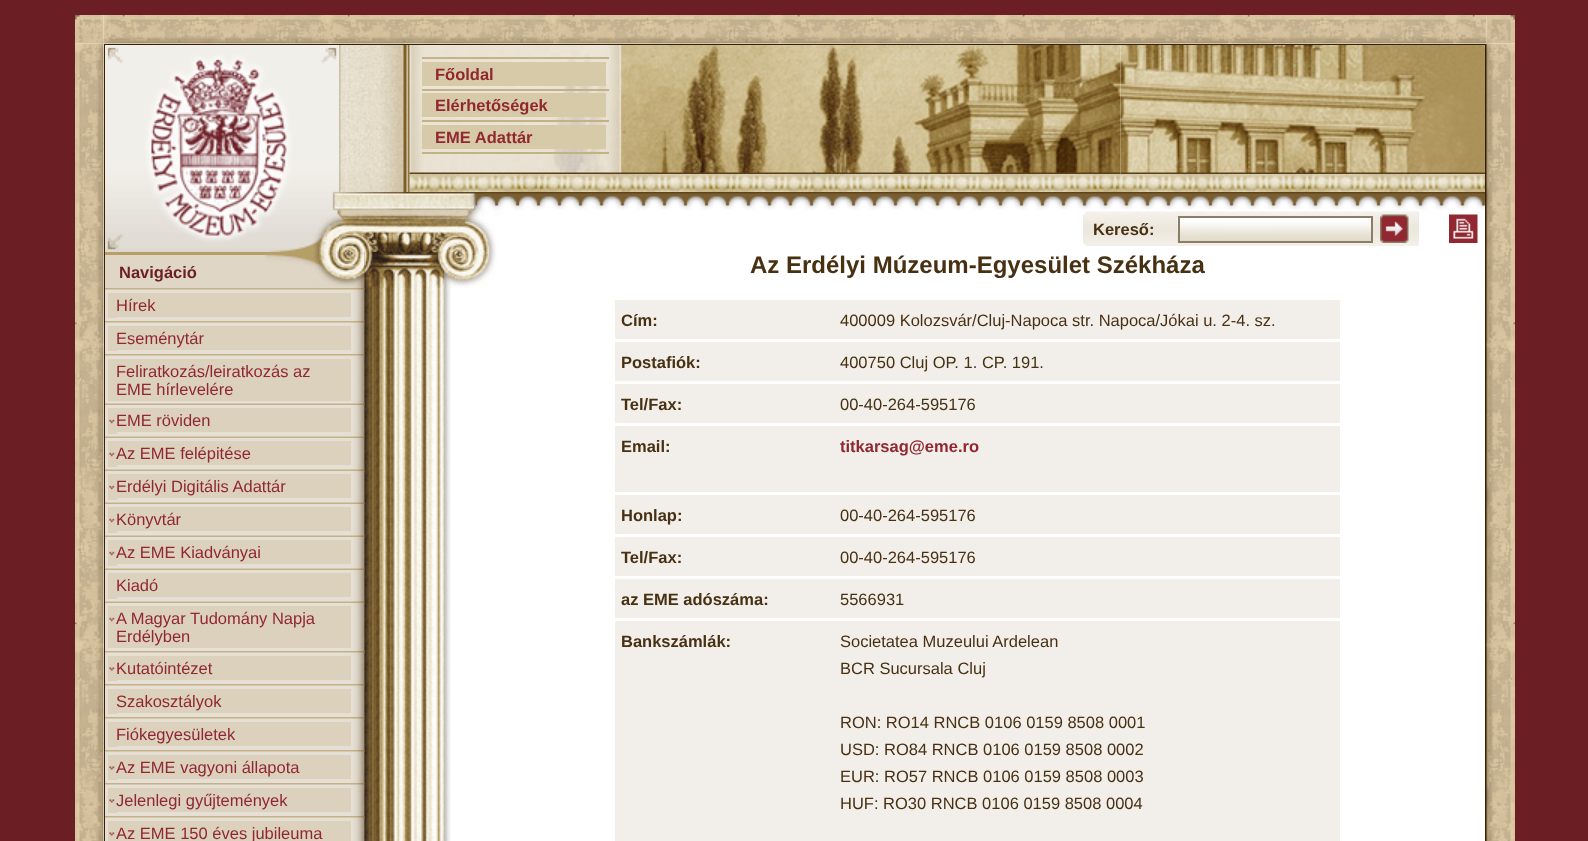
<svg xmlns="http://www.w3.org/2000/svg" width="1588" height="841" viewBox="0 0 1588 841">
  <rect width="100%" height="100%" fill="rgb(107,30,36)"/>
  <rect x="75" y="15" width="1440" height="826" fill="rgb(255,255,255)"/>
  <image x="103" y="15" width="1384" height="29" href="pic2.png"/>
  <image x="75" y="43" width="29" height="798" href="pic4.png"/>
  <image x="75" y="15" width="29" height="29" href="pic1.png"/>
  <rect x="104" y="44" width="1383" height="797" fill="rgb(55,32,4)"/>
  <image x="1486" y="43" width="29" height="798" href="pic38.png"/>
  <image x="1486" y="15" width="29" height="29" href="pic3.png"/>
  <rect x="409" y="45" width="1076" height="796" fill="rgb(255,255,255)"/>
  <image x="105" y="45" width="234" height="207" href="pic5.png"/>
  <image x="409" y="45" width="323" height="129" href="pic7.png"/>
  <image x="409" y="174" width="1076" height="18" href="pic10.png"/>
  <image x="339" y="45" width="71" height="147" href="pic6.png"/>
  <rect x="422" y="57" width="187" height="2" fill="rgb(197,178,132)"/>
  <rect x="422" y="62" width="184" height="24" fill="rgb(215,202,168)"/>
  <text x="435" y="80" font-family="Liberation Sans" font-size="16.5" font-weight="bold" fill="rgb(145,39,48)">Főoldal</text>
  <rect x="422" y="89" width="187" height="2" fill="rgb(197,178,132)"/>
  <rect x="422" y="93" width="184" height="24" fill="rgb(215,202,168)"/>
  <text x="435" y="111" font-family="Liberation Sans" font-size="16.5" font-weight="bold" fill="rgb(145,39,48)">Elérhetőségek</text>
  <rect x="422" y="120" width="187" height="2" fill="rgb(197,178,132)"/>
  <rect x="422" y="125" width="184" height="24" fill="rgb(215,202,168)"/>
  <text x="435" y="143" font-family="Liberation Sans" font-size="16.5" font-weight="bold" fill="rgb(145,39,48)">EME Adattár</text>
  <rect x="422" y="152" width="187" height="2" fill="rgb(197,178,132)"/>
  <image x="732" y="45" width="389" height="129" href="pic8.png"/>
  <image x="1120" y="45" width="365" height="129" href="pic9.png"/>
  <image x="339" y="192" width="162" height="60" href="pic11.png"/>
  <image x="501" y="192" width="18" height="18" href="pic12.png"/>
  <image x="519" y="192" width="966" height="18" href="pic13.png"/>
  <image x="1083" y="211" width="336" height="35" href="pic14.png"/>
  <image x="1083" y="211" width="10" height="35" href="pic15.png"/>
  <text x="1093" y="235" font-family="Liberation Sans" font-size="16.5" font-weight="bold" fill="rgb(71,49,18)">Kereső:</text>
  <image x="1177" y="216" width="194" height="27" href="pic16.png"/>
  <rect x="1179" y="217" width="193" height="25" fill="none" stroke="rgb(140,125,104)" stroke-width="2"/>
  <image x="1380" y="214" width="29" height="29" href="pic17.png"/>
  <image x="1449" y="214" width="29" height="29" href="pic18.png"/>
  <image x="105" y="252" width="346" height="589" href="pic19.png"/>
  <rect x="105" y="252" width="161" height="3" fill="rgb(183,159,102)"/>
  <rect x="105" y="255" width="161" height="33" fill="rgb(223,214,197)"/>
  <image x="265" y="252" width="100" height="36" href="pic20.png"/>
  <image x="364" y="252" width="133" height="36" href="pic21.png"/>
  <text x="119" y="278" font-family="Liberation Sans" font-size="16.5" font-weight="bold" fill="rgb(108,30,37)">Navigáció</text>
  <rect x="364" y="288" width="1" height="553" fill="rgba(159,145,128,0.5)"/>
  <image x="364" y="288" width="83" height="553" href="pic37.png"/>
  <image x="105" y="288" width="260" height="2" href="pic22.png"/>
  <rect x="108" y="293" width="9" height="25" fill="rgb(219,209,189)"/>
  <rect x="117" y="293" width="234" height="24" fill="rgb(219,209,189)"/>
  <text x="116" y="311" font-family="Liberation Sans" font-size="16.5" fill="rgb(145,39,48)">Hírek</text>
  <image x="105" y="321" width="260" height="2" href="pic23.png"/>
  <rect x="108" y="326" width="9" height="25" fill="rgb(219,209,189)"/>
  <rect x="117" y="326" width="234" height="24" fill="rgb(219,209,189)"/>
  <text x="116" y="344" font-family="Liberation Sans" font-size="16.5" fill="rgb(145,39,48)">Eseménytár</text>
  <image x="105" y="354" width="260" height="2" href="pic24.png"/>
  <rect x="108" y="359" width="243" height="42" fill="rgb(219,209,189)"/>
  <g font-family="Liberation Sans" font-size="16.5" fill="rgb(145,39,48)">
    <text>
      <tspan x="116" y="377">Feliratkozás/leiratkozás az</tspan>
      <tspan x="116" y="395">EME hírlevelére</tspan>
    </text>
  </g>
  <image x="105" y="403" width="260" height="2" href="pic25.png"/>
  <rect x="108" y="408" width="9" height="26" fill="rgb(219,209,189)"/>
  <image x="109" y="419" width="6" height="5" href="pic26.png"/>
  <rect x="117" y="408" width="234" height="24" fill="rgb(219,209,189)"/>
  <text x="116" y="426" font-family="Liberation Sans" font-size="16.5" fill="rgb(145,39,48)">EME röviden</text>
  <image x="105" y="436" width="260" height="2" href="pic27.png"/>
  <rect x="108" y="441" width="9" height="26" fill="rgb(219,209,189)"/>
  <image x="109" y="452" width="6" height="5" href="pic26.png"/>
  <rect x="117" y="441" width="234" height="24" fill="rgb(219,209,189)"/>
  <text x="116" y="459" font-family="Liberation Sans" font-size="16.5" fill="rgb(145,39,48)">Az EME felépitése</text>
  <image x="105" y="469" width="260" height="2" href="pic28.png"/>
  <rect x="108" y="474" width="9" height="26" fill="rgb(219,209,189)"/>
  <image x="109" y="485" width="6" height="5" href="pic26.png"/>
  <rect x="117" y="474" width="234" height="24" fill="rgb(219,209,189)"/>
  <text x="116" y="492" font-family="Liberation Sans" font-size="16.5" fill="rgb(145,39,48)">Erdélyi Digitális Adattár</text>
  <image x="105" y="502" width="260" height="2" href="pic29.png"/>
  <rect x="108" y="507" width="9" height="26" fill="rgb(219,209,189)"/>
  <image x="109" y="518" width="6" height="5" href="pic26.png"/>
  <rect x="117" y="507" width="234" height="24" fill="rgb(219,209,189)"/>
  <text x="116" y="525" font-family="Liberation Sans" font-size="16.5" fill="rgb(145,39,48)">Könyvtár</text>
  <image x="105" y="535" width="260" height="2" href="pic30.png"/>
  <rect x="108" y="540" width="9" height="26" fill="rgb(219,209,189)"/>
  <image x="109" y="551" width="6" height="5" href="pic26.png"/>
  <rect x="117" y="540" width="234" height="24" fill="rgb(219,209,189)"/>
  <text x="116" y="558" font-family="Liberation Sans" font-size="16.5" fill="rgb(145,39,48)">Az EME Kiadványai</text>
  <image x="105" y="568" width="260" height="2" href="pic31.png"/>
  <rect x="108" y="573" width="9" height="26" fill="rgb(219,209,189)"/>
  <rect x="117" y="573" width="234" height="24" fill="rgb(219,209,189)"/>
  <text x="116" y="591" font-family="Liberation Sans" font-size="16.5" fill="rgb(145,39,48)">Kiadó</text>
  <image x="105" y="601" width="260" height="2" href="pic32.png"/>
  <rect x="108" y="606" width="243" height="42" fill="rgb(219,209,189)"/>
  <image x="109" y="617" width="6" height="5" href="pic26.png"/>
  <g font-family="Liberation Sans" font-size="16.5" fill="rgb(145,39,48)">
    <text>
      <tspan x="116" y="624">A Magyar Tudomány Napja</tspan>
      <tspan x="116" y="642">Erdélyben</tspan>
    </text>
  </g>
  <image x="105" y="651" width="260" height="2" href="pic33.png"/>
  <rect x="108" y="656" width="9" height="25" fill="rgb(219,209,189)"/>
  <image x="109" y="667" width="6" height="4" href="pic34.png"/>
  <rect x="117" y="656" width="234" height="24" fill="rgb(219,209,189)"/>
  <text x="116" y="674" font-family="Liberation Sans" font-size="16.5" fill="rgb(145,39,48)">Kutatóintézet</text>
  <image x="105" y="684" width="260" height="2" href="pic35.png"/>
  <rect x="108" y="689" width="9" height="25" fill="rgb(219,209,189)"/>
  <rect x="117" y="689" width="234" height="24" fill="rgb(219,209,189)"/>
  <text x="116" y="707" font-family="Liberation Sans" font-size="16.5" fill="rgb(145,39,48)">Szakosztályok</text>
  <image x="105" y="717" width="260" height="2" href="pic36.png"/>
  <rect x="108" y="722" width="9" height="25" fill="rgb(219,209,189)"/>
  <rect x="117" y="722" width="234" height="24" fill="rgb(219,209,189)"/>
  <text x="116" y="740" font-family="Liberation Sans" font-size="16.5" fill="rgb(145,39,48)">Fiókegyesületek</text>
  <image x="105" y="750" width="260" height="2" href="pic22.png"/>
  <rect x="108" y="755" width="9" height="25" fill="rgb(219,209,189)"/>
  <image x="109" y="766" width="6" height="4" href="pic34.png"/>
  <rect x="117" y="755" width="234" height="24" fill="rgb(219,209,189)"/>
  <text x="116" y="773" font-family="Liberation Sans" font-size="16.5" fill="rgb(145,39,48)">Az EME vagyoni állapota</text>
  <image x="105" y="783" width="260" height="2" href="pic23.png"/>
  <rect x="108" y="788" width="9" height="25" fill="rgb(219,209,189)"/>
  <image x="109" y="799" width="6" height="4" href="pic34.png"/>
  <rect x="117" y="788" width="234" height="24" fill="rgb(219,209,189)"/>
  <text x="116" y="806" font-family="Liberation Sans" font-size="16.5" fill="rgb(145,39,48)">Jelenlegi gyűjtemények</text>
  <image x="105" y="816" width="260" height="2" href="pic24.png"/>
  <rect x="108" y="821" width="243" height="20" fill="rgb(219,209,189)"/>
  <image x="109" y="832" width="6" height="4" href="pic34.png"/>
  <text x="116" y="839" font-family="Liberation Sans" font-size="16.5" fill="rgb(145,39,48)">Az EME 150 éves jubileuma</text>
  <text x="750" y="273" font-family="Liberation Sans" font-size="24" font-weight="bold" fill="rgb(71,49,18)">Az Erdélyi Múzeum-Egyesület Székháza</text>
  <rect x="615" y="300" width="725" height="39" fill="rgb(242,239,234)"/>
  <text x="621" y="326" font-family="Liberation Sans" font-size="16.5" font-weight="bold" fill="rgb(71,49,18)">Cím:</text>
  <text x="840" y="326" font-family="Liberation Sans" font-size="16.5" fill="rgb(71,49,18)">400009 Kolozsvár/Cluj-Napoca str. Napoca/Jókai u. 2-4. sz.</text>
  <rect x="615" y="342" width="725" height="39" fill="rgb(242,239,234)"/>
  <text x="621" y="368" font-family="Liberation Sans" font-size="16.5" font-weight="bold" fill="rgb(71,49,18)">Postafiók:</text>
  <text x="840" y="368" font-family="Liberation Sans" font-size="16.5" fill="rgb(71,49,18)">400750 Cluj OP. 1. CP. 191.</text>
  <rect x="615" y="384" width="725" height="39" fill="rgb(242,239,234)"/>
  <text x="621" y="410" font-family="Liberation Sans" font-size="16.5" font-weight="bold" fill="rgb(71,49,18)">Tel/Fax:</text>
  <text x="840" y="410" font-family="Liberation Sans" font-size="16.5" fill="rgb(71,49,18)">00-40-264-595176</text>
  <rect x="615" y="426" width="725" height="66" fill="rgb(242,239,234)"/>
  <text x="621" y="452" font-family="Liberation Sans" font-size="16.5" font-weight="bold" fill="rgb(71,49,18)">Email:</text>
  <text x="840" y="452" font-family="Liberation Sans" font-size="16.5" font-weight="bold" fill="rgb(145,39,48)">titkarsag@eme.ro</text>
  <rect x="615" y="495" width="725" height="39" fill="rgb(242,239,234)"/>
  <text x="621" y="521" font-family="Liberation Sans" font-size="16.5" font-weight="bold" fill="rgb(71,49,18)">Honlap:</text>
  <text x="840" y="521" font-family="Liberation Sans" font-size="16.5" fill="rgb(71,49,18)">00-40-264-595176</text>
  <rect x="615" y="537" width="725" height="39" fill="rgb(242,239,234)"/>
  <text x="621" y="563" font-family="Liberation Sans" font-size="16.5" font-weight="bold" fill="rgb(71,49,18)">Tel/Fax:</text>
  <text x="840" y="563" font-family="Liberation Sans" font-size="16.5" fill="rgb(71,49,18)">00-40-264-595176</text>
  <rect x="615" y="579" width="725" height="39" fill="rgb(242,239,234)"/>
  <text x="621" y="605" font-family="Liberation Sans" font-size="16.5" font-weight="bold" fill="rgb(71,49,18)">az EME adószáma:</text>
  <text x="840" y="605" font-family="Liberation Sans" font-size="16.5" fill="rgb(71,49,18)">5566931</text>
  <rect x="615" y="621" width="725" height="220" fill="rgb(242,239,234)"/>
  <text x="621" y="647" font-family="Liberation Sans" font-size="16.5" font-weight="bold" fill="rgb(71,49,18)">Bankszámlák:</text>
  <g font-family="Liberation Sans" font-size="16.5" fill="rgb(71,49,18)">
    <text>
      <tspan x="840" y="647">Societatea Muzeului Ardelean</tspan>
      <tspan x="840" y="674">BCR Sucursala Cluj</tspan>
    </text>
    <text>
      <tspan x="840" y="728">RON: RO14 RNCB 0106 0159 8508 0001</tspan>
      <tspan x="840" y="755">USD: RO84 RNCB 0106 0159 8508 0002</tspan>
      <tspan x="840" y="782">EUR: RO57 RNCB 0106 0159 8508 0003</tspan>
      <tspan x="840" y="809">HUF: RO30 RNCB 0106 0159 8508 0004</tspan>
    </text>
  </g>
</svg>
